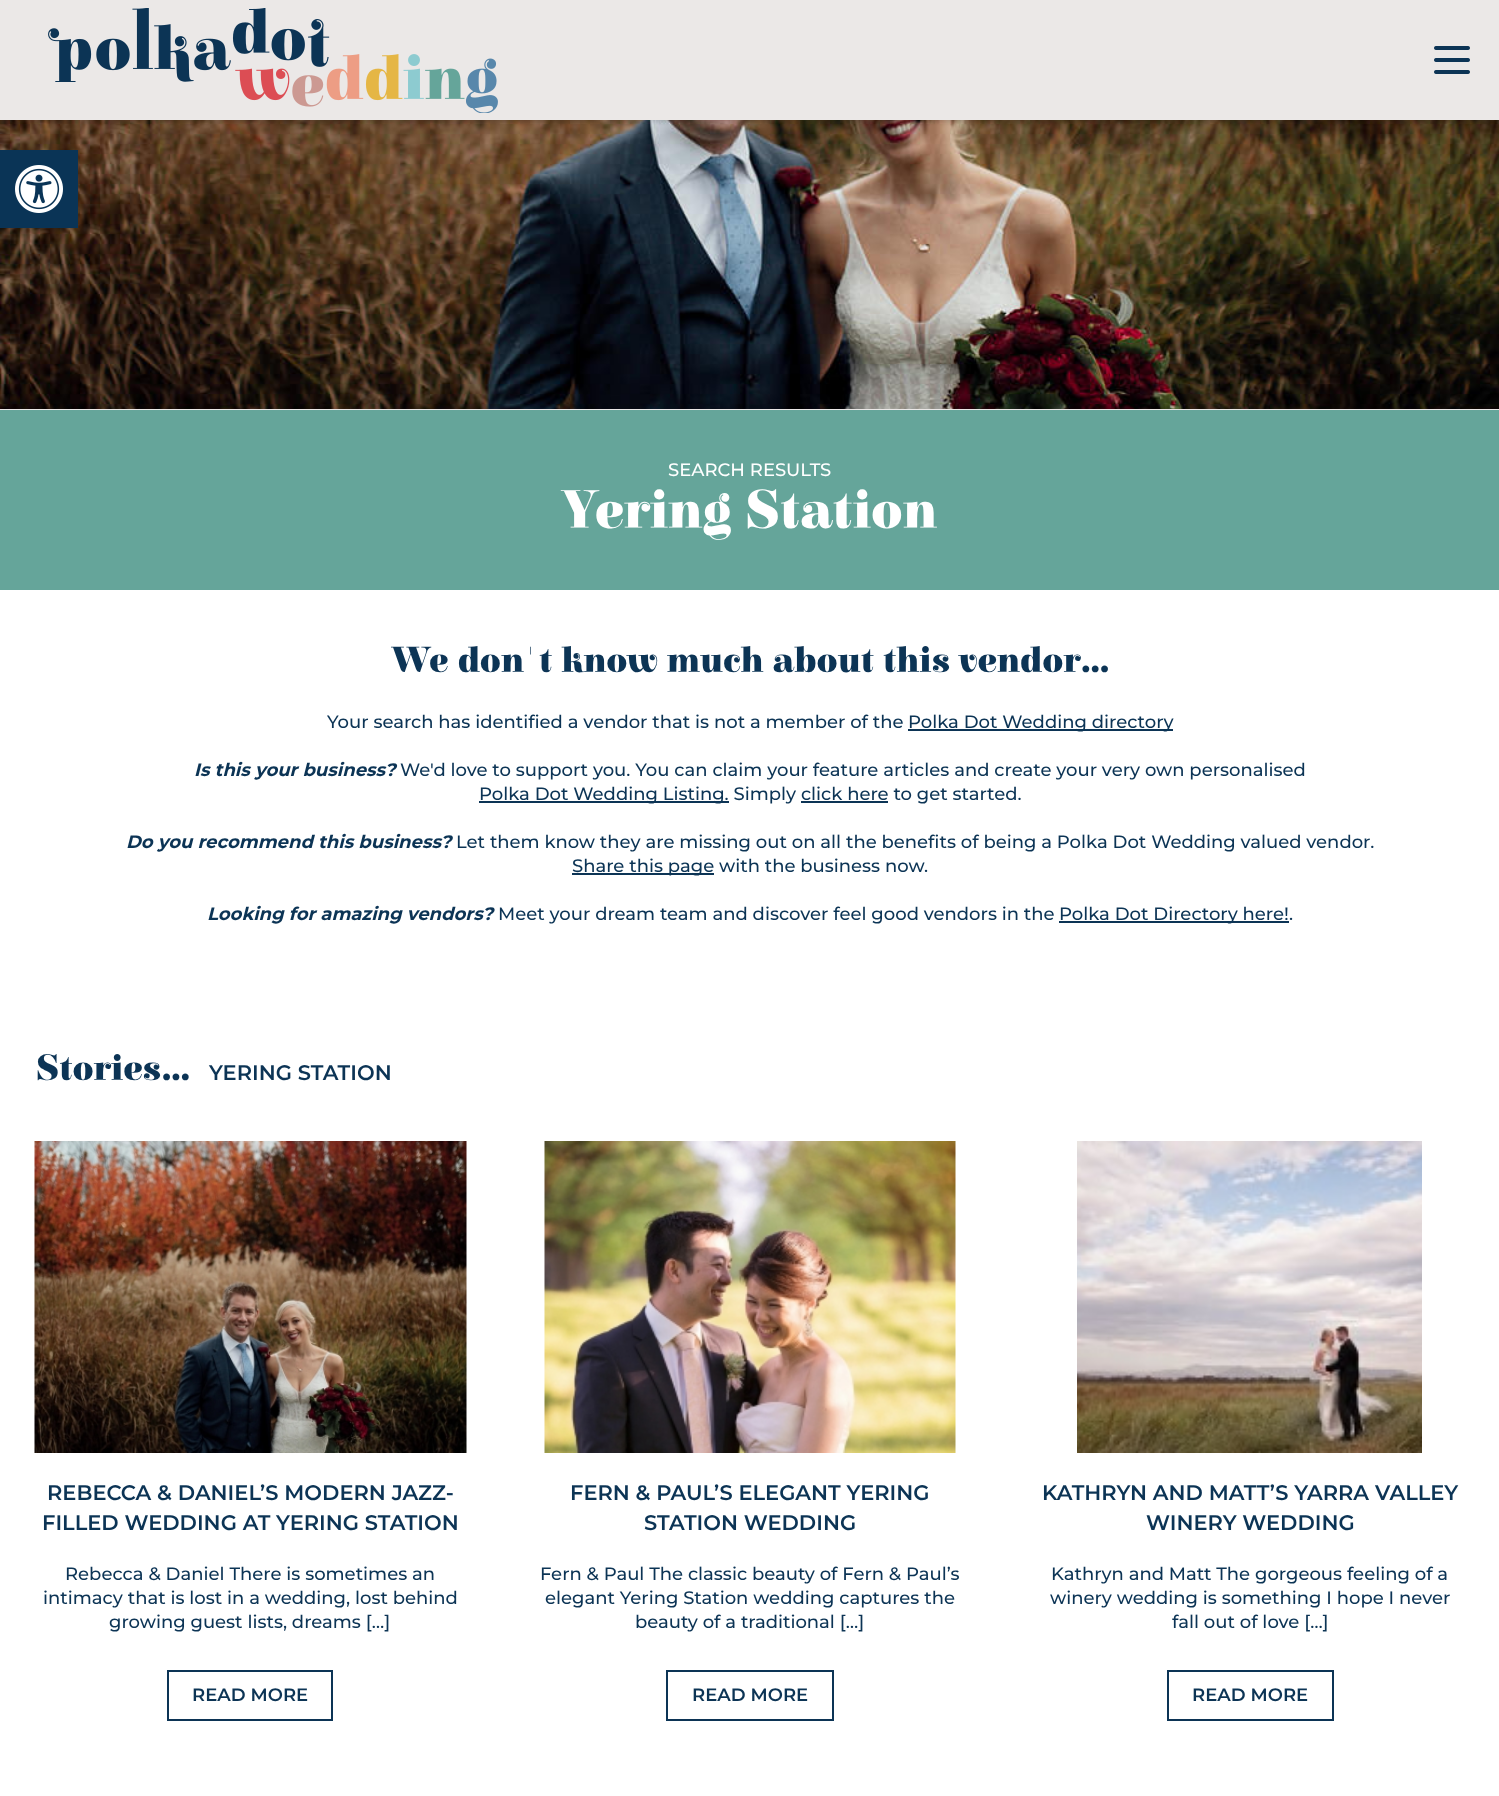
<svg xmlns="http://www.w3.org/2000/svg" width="1499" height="1796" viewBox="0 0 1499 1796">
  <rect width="100%" height="100%" fill="rgb(255,255,255)"/>
  <image x="0" y="120" width="1499" height="289" href="pic4.png"/>
  <rect x="0" y="2" width="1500" height="120" fill="rgba(0,0,0,0.06)" filter="blur(1.5px)"/>
  <rect x="0" y="2" width="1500" height="120" fill="rgba(0,0,0,0.1)" filter="blur(2px)"/>
  <rect x="0" y="0" width="1499" height="120" fill="rgb(235,232,231)"/>
  <image x="48" y="8" width="450" height="105" href="pic1.png"/>
  <image x="1434" y="46" width="36" height="28" href="pic2.png"/>
  <rect x="0" y="150" width="78" height="78" fill="rgba(0,0,0,0.1)" filter="blur(7.5px)"/>
  <rect x="0" y="150" width="78" height="78" fill="rgb(10,52,86)"/>
  <image x="15" y="165" width="48" height="48" href="pic3.png"/>
  <rect x="0" y="409" width="1499" height="1" fill="rgb(235,232,231)"/>
  <rect x="0" y="410" width="1499" height="180" fill="rgb(101,165,154)"/>
  <text x="668" y="476" font-family="Montserrat" font-size="18" font-weight="500" fill="rgb(255,255,255)">SEARCH RESULTS</text>
  <text x="563" y="528" font-family="Elsie" font-size="54" font-weight="900" fill="rgb(255,255,255)">Yering Station</text>
  <text x="391" y="672" font-family="Elsie" font-size="36" font-weight="900" fill="rgb(12,52,85)">We don't know much about this vendor...</text>
  <text x="327" y="728" font-family="Montserrat" font-size="18" font-weight="500" fill="rgb(12,52,85)">Your search has identified a vendor that is not a member of the</text>
  <rect x="908" y="729" width="265" height="2" fill="rgb(12,52,85)"/>
  <text x="908" y="728" font-family="Montserrat" font-size="18" font-weight="500" fill="rgb(12,52,85)">Polka Dot Wedding directory</text>
  <text x="194" y="776" font-family="Montserrat" font-size="18" font-weight="bold" font-style="italic" fill="rgb(12,52,85)">Is this your business?</text>
  <text x="400" y="776" font-family="Montserrat" font-size="18" font-weight="500" fill="rgb(12,52,85)">We'd love to support you. You can claim your feature articles and create your very own personalised</text>
  <rect x="479" y="801" width="250" height="2" fill="rgb(12,52,85)"/>
  <text x="479" y="800" font-family="Montserrat" font-size="18" font-weight="500" fill="rgb(12,52,85)">Polka Dot Wedding Listing. Simply click here to get started.</text>
  <rect x="801" y="801" width="87" height="2" fill="rgb(12,52,85)"/>
  <text x="126" y="848" font-family="Montserrat" font-size="18" font-weight="bold" font-style="italic" fill="rgb(12,52,85)">Do you recommend this business?</text>
  <text x="456" y="848" font-family="Montserrat" font-size="18" font-weight="500" fill="rgb(12,52,85)">Let them know they are missing out on all the benefits of being a Polka Dot Wedding valued vendor.</text>
  <rect x="572" y="873" width="142" height="2" fill="rgb(12,52,85)"/>
  <text x="572" y="872" font-family="Montserrat" font-size="18" font-weight="500" fill="rgb(12,52,85)">Share this page with the business now.</text>
  <text x="207" y="920" font-family="Montserrat" font-size="18" font-weight="bold" font-style="italic" fill="rgb(12,52,85)">Looking for amazing vendors?</text>
  <text x="498" y="920" font-family="Montserrat" font-size="18" font-weight="500" fill="rgb(12,52,85)">Meet your dream team and discover feel good vendors in the</text>
  <rect x="1059" y="921" width="230" height="2" fill="rgb(12,52,85)"/>
  <text x="1059" y="920" font-family="Montserrat" font-size="18" font-weight="500" fill="rgb(12,52,85)">Polka Dot Directory here!.</text>
  <text x="36" y="1080" font-family="Elsie" font-size="36" font-weight="900" fill="rgb(12,52,85)">Stories...</text>
  <text x="209" y="1080" font-family="Montserrat" font-size="21" font-weight="600" fill="rgb(12,52,85)">YERING STATION</text>
  <image x="34" y="1141" width="433" height="312" href="pic5.png"/>
  <g font-family="Montserrat" font-size="21" font-weight="600" fill="rgb(12,52,85)">
    <text x="47" y="1500">REBECCA &amp; DANIEL’S MODERN JAZZ-</text>
    <text x="42" y="1530">FILLED WEDDING AT YERING STATION</text>
  </g>
  <g font-family="Montserrat" font-size="18" font-weight="500" fill="rgb(12,52,85)">
    <text x="65" y="1580">Rebecca &amp; Daniel There is sometimes an</text>
    <text x="43" y="1604">intimacy that is lost in a wedding, lost behind</text>
    <text x="109" y="1628">growing guest lists, dreams […]</text>
  </g>
  <rect x="168" y="1671" width="164" height="49" fill="none" stroke="rgb(12,52,85)" stroke-width="2"/>
  <text x="192" y="1701" font-family="Montserrat" font-size="18" font-weight="600" fill="rgb(12,52,85)">READ MORE</text>
  <image x="544" y="1141" width="412" height="312" href="pic6.png"/>
  <g font-family="Montserrat" font-size="21" font-weight="600" fill="rgb(12,52,85)">
    <text x="570" y="1500">FERN &amp; PAUL’S ELEGANT YERING</text>
    <text x="644" y="1530">STATION WEDDING</text>
  </g>
  <g font-family="Montserrat" font-size="18" font-weight="500" fill="rgb(12,52,85)">
    <text x="540" y="1580">Fern &amp; Paul The classic beauty of Fern &amp; Paul’s</text>
    <text x="545" y="1604">elegant Yering Station wedding captures the</text>
    <text x="635" y="1628">beauty of a traditional […]</text>
  </g>
  <rect x="667" y="1671" width="166" height="49" fill="none" stroke="rgb(12,52,85)" stroke-width="2"/>
  <text x="692" y="1701" font-family="Montserrat" font-size="18" font-weight="600" fill="rgb(12,52,85)">READ MORE</text>
  <image x="1077" y="1141" width="345" height="312" href="pic7.png"/>
  <g font-family="Montserrat" font-size="21" font-weight="600" fill="rgb(12,52,85)">
    <text x="1042" y="1500">KATHRYN AND MATT’S YARRA VALLEY</text>
    <text x="1146" y="1530">WINERY WEDDING</text>
  </g>
  <g font-family="Montserrat" font-size="18" font-weight="500" fill="rgb(12,52,85)">
    <text x="1051" y="1580">Kathryn and Matt The gorgeous feeling of a</text>
    <text x="1050" y="1604">winery wedding is something I hope I never</text>
    <text x="1172" y="1628">fall out of love […]</text>
  </g>
  <rect x="1168" y="1671" width="165" height="49" fill="none" stroke="rgb(12,52,85)" stroke-width="2"/>
  <text x="1192" y="1701" font-family="Montserrat" font-size="18" font-weight="600" fill="rgb(12,52,85)">READ MORE</text>
</svg>
